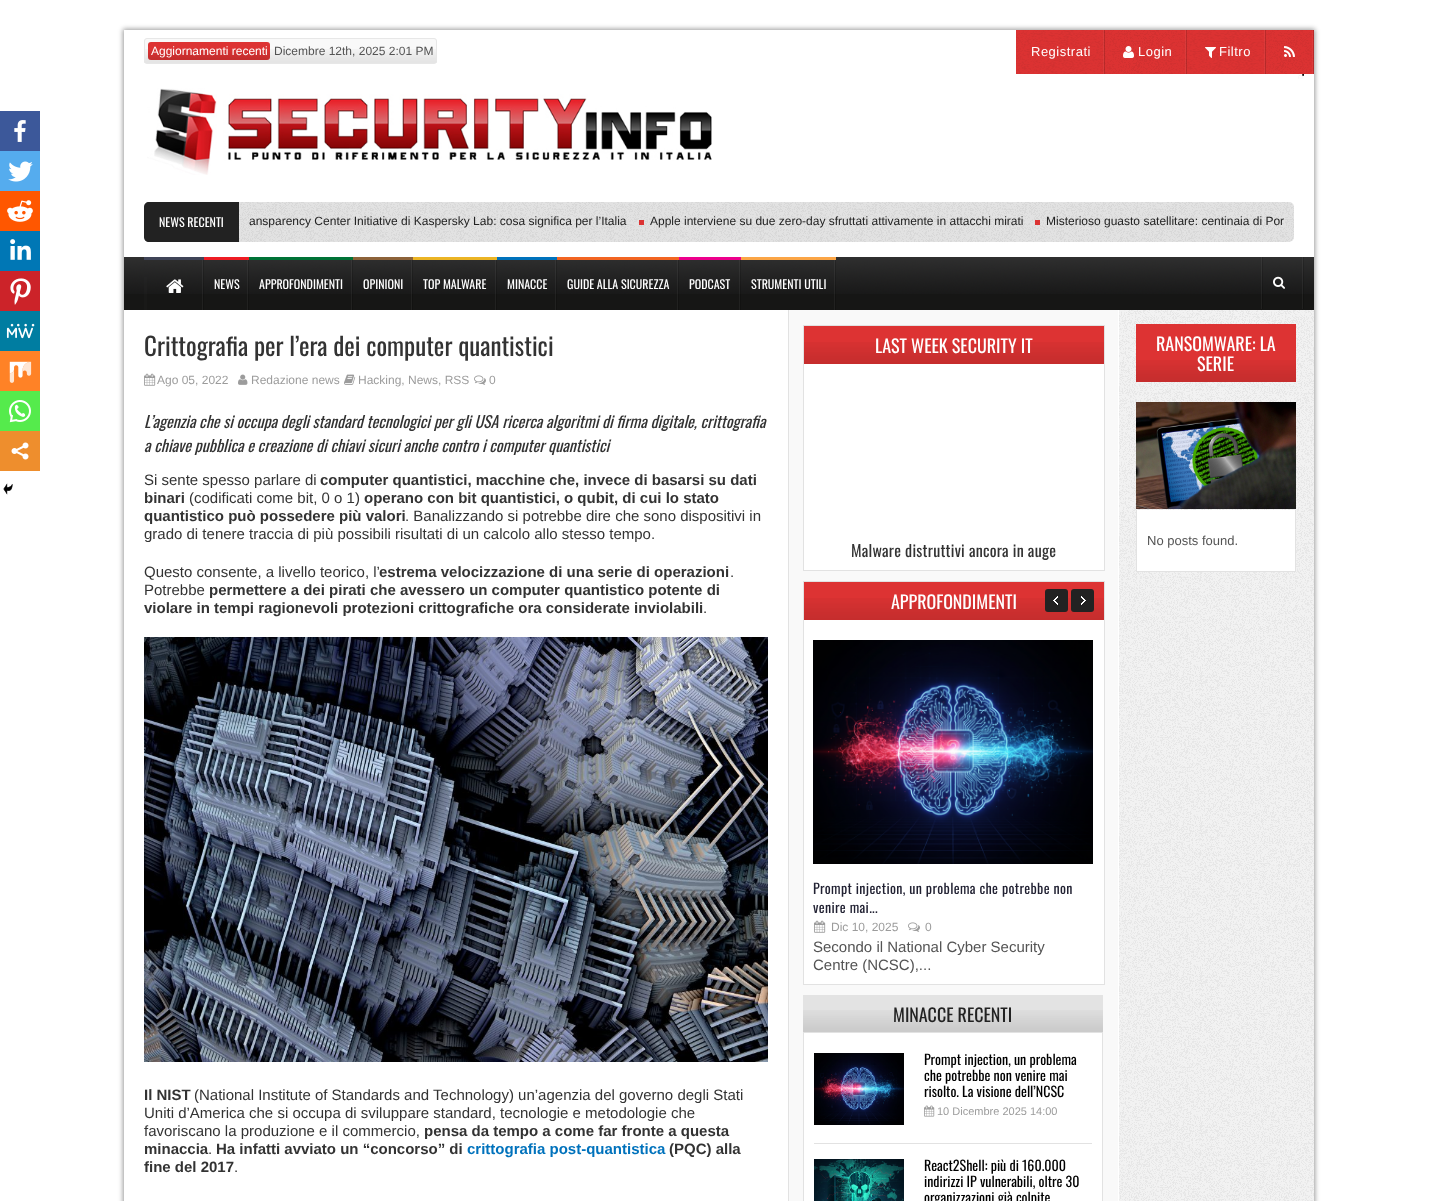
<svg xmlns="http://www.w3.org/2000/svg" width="1437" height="1201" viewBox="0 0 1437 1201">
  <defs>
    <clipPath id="clip1"><path d="M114 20H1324V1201H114ZM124 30H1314V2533H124Z" clip-rule="evenodd"/></clipPath>
  </defs>
  <rect width="100%" height="100%" fill="rgb(255,255,255)"/>
  <g clip-path="url(#clip1)">
    <rect x="123" y="29" width="1192" height="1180" fill="rgba(0,0,0,0.4)" filter="blur(2.5px)"/>
  </g>
  <rect x="144" y="38" width="293" height="26" rx="3" fill="rgb(249,249,249)"/>
  <image x="144" y="49" width="293" height="14" href="pic1.png"/>
  <rect x="144.5" y="38.5" width="292" height="25" rx="2.5" fill="none" stroke="rgb(231,231,231)"/>
  <rect x="148" y="42" width="122" height="18" rx="3" fill="rgb(221,51,51)"/>
  <image x="148" y="50" width="122" height="10" href="pic2.png"/>
  <text x="151" y="55" font-family="Liberation Sans" font-size="12" fill="rgb(255,255,255)">Aggiornamenti recenti</text>
  <text x="274" y="55" font-family="Liberation Sans" font-size="12" fill="rgb(84,84,84)">Dicembre 12th, 2025 2:01 PM</text>
  <rect x="1016" y="30" width="298" height="44" fill="rgb(221,51,51)"/>
  <image x="1016" y="30" width="89" height="44" href="pic3.png"/>
  <image x="1103" y="30" width="2" height="44" href="pic4.png"/>
  <text x="1031" y="56" font-family="Liberation Sans" font-size="13" letter-spacing="0.5" fill="rgb(255,255,255)">Registrati</text>
  <image x="1105" y="30" width="82" height="44" href="pic5.png"/>
  <image x="1185" y="30" width="2" height="44" href="pic6.png"/>
  <image x="1123" y="46" width="11" height="12" href="pic7.png"/>
  <text x="1138" y="56" font-family="Liberation Sans" font-size="13" letter-spacing="0.5" fill="rgb(255,255,255)">Login</text>
  <image x="1187" y="30" width="79" height="44" href="pic8.png"/>
  <image x="1264" y="30" width="2" height="44" href="pic9.png"/>
  <image x="1205" y="47" width="11" height="11" href="pic10.png"/>
  <text x="1219" y="56" font-family="Liberation Sans" font-size="13" letter-spacing="0.5" fill="rgb(255,255,255)">Filtro</text>
  <image x="1266" y="30" width="48" height="44" href="pic11.png"/>
  <image x="1312" y="30" width="2" height="44" href="pic12.png"/>
  <image x="1284" y="46" width="11" height="11" href="pic13.png"/>
  <image x="1298" y="74" width="6" height="5" href="pic14.png"/>
  <image x="147" y="88" width="565" height="87" href="pic15.png"/>
  <rect x="144" y="202" width="1150" height="40" rx="5" fill="rgb(227,227,227)"/>
  <image x="144" y="202" width="1150" height="40" href="pic16.png"/>
  <path d="M149 202H239V242H149C146 242 144 240 144 237V207C144 204 146 202 149 202Z" fill="rgb(34,34,34)"/>
  <text x="159" y="227" font-family="Oswald" font-size="12" fill="rgb(255,255,255)">NEWS RECENTI</text>
  <text x="249" y="225" font-family="Liberation Sans" font-size="12" fill="rgb(34,34,34)">ansparency Center Initiative di Kaspersky Lab: cosa significa per l’Italia</text>
  <rect x="639" y="220" width="5" height="5" fill="rgb(219,51,51)"/>
  <text x="650" y="225" font-family="Liberation Sans" font-size="12" fill="rgb(34,34,34)">Apple interviene su due zero-day sfruttati attivamente in attacchi mirati</text>
  <rect x="1035" y="220" width="5" height="5" fill="rgb(219,51,51)"/>
  <text x="1046" y="225" font-family="Liberation Sans" font-size="12" fill="rgb(34,34,34)">Misterioso guasto satellitare: centinaia di Por</text>
  <rect x="124" y="294" width="1190" height="16" fill="rgb(22,22,21)"/>
  <image x="124" y="257" width="1190" height="37" href="pic17.png"/>
  <rect x="144" y="277" width="3" height="33" fill="rgba(61,61,61,0.1)"/>
  <image x="202" y="260" width="2" height="50" href="pic18.png"/>
  <rect x="144" y="257" width="60" height="3" fill="rgb(63,68,87)"/>
  <image x="166" y="279" width="18" height="14" href="pic19.png"/>
  <image x="247" y="260" width="2" height="50" href="pic20.png"/>
  <rect x="204" y="257" width="45" height="3" fill="rgb(238,28,36)"/>
  <text x="214" y="289" font-family="Oswald" font-size="12" fill="rgb(255,255,255)">NEWS</text>
  <image x="351" y="260" width="2" height="50" href="pic21.png"/>
  <rect x="249" y="257" width="104" height="3" fill="rgb(0,114,54)"/>
  <text x="259" y="289" font-family="Oswald" font-size="12" fill="rgb(255,255,255)">APPROFONDIMENTI</text>
  <image x="411" y="260" width="2" height="50" href="pic22.png"/>
  <rect x="353" y="257" width="60" height="3" fill="rgb(140,98,57)"/>
  <text x="363" y="289" font-family="Oswald" font-size="12" fill="rgb(255,255,255)">OPINIONI</text>
  <image x="495" y="260" width="2" height="50" href="pic21.png"/>
  <rect x="413" y="257" width="84" height="3" fill="rgb(235,180,36)"/>
  <text x="423" y="289" font-family="Oswald" font-size="12" fill="rgb(255,255,255)">TOP MALWARE</text>
  <image x="555" y="260" width="2" height="50" href="pic22.png"/>
  <rect x="497" y="257" width="60" height="3" fill="rgb(0,114,188)"/>
  <text x="507" y="289" font-family="Oswald" font-size="12" fill="rgb(255,255,255)">MINACCE</text>
  <image x="677" y="260" width="2" height="50" href="pic23.png"/>
  <rect x="557" y="257" width="122" height="3" fill="rgb(242,101,34)"/>
  <text x="567" y="289" font-family="Oswald" font-size="12" fill="rgb(255,255,255)">GUIDE ALLA SICUREZZA</text>
  <image x="739" y="260" width="2" height="50" href="pic24.png"/>
  <rect x="679" y="257" width="62" height="3" fill="rgb(237,0,140)"/>
  <text x="689" y="289" font-family="Oswald" font-size="12" fill="rgb(255,255,255)">PODCAST</text>
  <image x="834" y="260" width="2" height="50" href="pic25.png"/>
  <rect x="741" y="257" width="95" height="3" fill="rgb(251,165,70)"/>
  <text x="751" y="289" font-family="Oswald" font-size="12" fill="rgb(255,255,255)">STRUMENTI UTILI</text>
  <image x="1261" y="257" width="2" height="52" href="pic26.png"/>
  <image x="1302" y="257" width="2" height="52" href="pic27.png"/>
  <image x="1273" y="276" width="12" height="13" href="pic28.png"/>
  <rect x="0" y="111" width="40" height="40" fill="rgb(60,88,154)"/>
  <image x="14" y="120" width="12" height="22" href="pic29.png"/>
  <rect x="0" y="151" width="40" height="40" fill="rgb(85,172,238)"/>
  <image x="8" y="161" width="25" height="21" href="pic30.png"/>
  <rect x="0" y="191" width="40" height="40" fill="rgb(255,87,0)"/>
  <image x="7" y="200" width="26" height="22" href="pic31.png"/>
  <rect x="0" y="231" width="40" height="40" fill="rgb(0,119,181)"/>
  <image x="10" y="239" width="21" height="21" href="pic32.png"/>
  <rect x="0" y="271" width="40" height="40" fill="rgb(204,35,41)"/>
  <image x="10" y="278" width="21" height="27" href="pic33.png"/>
  <rect x="0" y="311" width="40" height="40" fill="rgb(0,125,161)"/>
  <image x="6" y="323" width="29" height="16" href="pic34.png"/>
  <rect x="0" y="351" width="40" height="40" fill="rgb(255,130,38)"/>
  <image x="9" y="361" width="23" height="22" href="pic35.png"/>
  <rect x="0" y="391" width="40" height="40" fill="rgb(85,235,76)"/>
  <image x="9" y="400" width="22" height="23" href="pic36.png"/>
  <rect x="0" y="431" width="40" height="40" fill="rgb(238,142,45)"/>
  <image x="11" y="442" width="18" height="18" href="pic37.png"/>
  <image x="3" y="483" width="10" height="12" href="pic38.png"/>
  <text x="144" y="356" font-family="Oswald" font-size="25" fill="rgb(51,51,51)">Crittografia per l’era dei computer quantistici</text>
  <image x="144" y="373" width="12" height="13" href="pic39.png"/>
  <text x="157" y="384" font-family="Liberation Sans" font-size="12" fill="rgb(156,156,156)">Ago 05, 2022</text>
  <image x="238" y="374" width="10" height="11" href="pic40.png"/>
  <text x="251" y="384" font-family="Liberation Sans" font-size="12" fill="rgb(156,156,156)">Redazione news</text>
  <image x="344" y="374" width="12" height="11" href="pic41.png"/>
  <text x="358" y="384" font-family="Liberation Sans" font-size="12" fill="rgb(156,156,156)">Hacking, News, RSS</text>
  <image x="474" y="375" width="12" height="10" href="pic42.png"/>
  <text x="489" y="384" font-family="Liberation Sans" font-size="12" fill="rgb(156,156,156)">0</text>
  <g font-family="Oswald" font-size="16" font-style="italic" fill="rgb(51,51,51)">
    <text>
      <tspan x="144" y="428">L’agenzia che si occupa degli standard tecnologici per gli USA ricerca algoritmi di firma digitale, crittografia</tspan>
      <tspan x="144" y="452">a chiave pubblica e creazione di chiavi sicuri anche contro i computer quantistici</tspan>
    </text>
  </g>
  <text x="144" y="485" font-family="Liberation Sans" font-size="15" fill="rgb(51,51,51)">Si sente spesso parlare di</text>
  <g font-family="Liberation Sans" font-size="15" font-weight="bold" fill="rgb(51,51,51)">
    <text x="320" y="485">computer quantistici, macchine che, invece di basarsi su dati</text>
    <text x="144" y="503">binari</text>
  </g>
  <text x="189" y="503" font-family="Liberation Sans" font-size="15" fill="rgb(51,51,51)">(codificati come bit, 0 o 1)</text>
  <g font-family="Liberation Sans" font-size="15" font-weight="bold" fill="rgb(51,51,51)">
    <text x="364" y="503">operano con bit quantistici, o qubit, di cui lo stato</text>
    <text x="144" y="521">quantistico può possedere più valori</text>
  </g>
  <g font-family="Liberation Sans" font-size="15" fill="rgb(51,51,51)">
    <text x="405" y="521">. Banalizzando si potrebbe dire che sono dispositivi in</text>
    <text x="144" y="539">grado di tenere traccia di più possibili risultati di un calcolo allo stesso tempo.</text>
    <text x="144" y="577">Questo consente, a livello teorico, l’</text>
  </g>
  <text x="379" y="577" font-family="Liberation Sans" font-size="15" font-weight="bold" fill="rgb(51,51,51)">estrema velocizzazione di una serie di operazioni</text>
  <g font-family="Liberation Sans" font-size="15" fill="rgb(51,51,51)">
    <text x="730" y="577">.</text>
    <text x="144" y="595">Potrebbe</text>
  </g>
  <g font-family="Liberation Sans" font-size="15" font-weight="bold" fill="rgb(51,51,51)">
    <text x="209" y="595">permettere a dei pirati che avessero un computer quantistico potente di</text>
    <text x="144" y="613">violare in tempi ragionevoli protezioni crittografiche ora considerate inviolabili</text>
  </g>
  <text x="703" y="613" font-family="Liberation Sans" font-size="15" fill="rgb(51,51,51)">.</text>
  <image x="144" y="637" width="624" height="425" href="pic43.png"/>
  <text x="144" y="1100" font-family="Liberation Sans" font-size="15" font-weight="bold" fill="rgb(51,51,51)">Il NIST</text>
  <g font-family="Liberation Sans" font-size="15" fill="rgb(51,51,51)">
    <text x="194" y="1100">(National Institute of Standards and Technology) un’agenzia del governo degli Stati</text>
    <text>
      <tspan x="144" y="1118">Uniti d’America che si occupa di sviluppare standard, tecnologie e metodologie che</tspan>
      <tspan x="144" y="1136">favoriscano la produzione e il commercio,</tspan>
    </text>
  </g>
  <g font-family="Liberation Sans" font-size="15" font-weight="bold" fill="rgb(51,51,51)">
    <text x="424" y="1136">pensa da tempo a come far fronte a questa</text>
    <text x="144" y="1154">minaccia</text>
  </g>
  <text x="208" y="1154" font-family="Liberation Sans" font-size="15" fill="rgb(51,51,51)">.</text>
  <text x="216" y="1154" font-family="Liberation Sans" font-size="15" font-weight="bold" fill="rgb(51,51,51)">Ha infatti avviato un “concorso” di</text>
  <text x="467" y="1154" font-family="Liberation Sans" font-size="15" font-weight="bold" fill="rgb(0,114,188)">crittografia post-quantistica</text>
  <g font-family="Liberation Sans" font-size="15" font-weight="bold" fill="rgb(51,51,51)">
    <text x="669" y="1154">(PQC) alla</text>
    <text x="144" y="1172">fine del 2017</text>
  </g>
  <text x="234" y="1172" font-family="Liberation Sans" font-size="15" fill="rgb(51,51,51)">.</text>
  <rect x="789" y="310" width="329" height="891" fill="rgb(249,249,249)"/>
  <rect x="788" y="310" width="1" height="891" fill="rgb(226,226,226)"/>
  <rect x="804" y="364" width="300" height="206" fill="rgb(255,255,255)"/>
  <rect x="803.5" y="325.5" width="301" height="245" fill="none" stroke="rgb(226,226,226)"/>
  <rect x="804" y="326" width="300" height="38" fill="rgb(221,51,51)"/>
  <image x="804" y="342" width="300" height="22" href="pic44.png"/>
  <text x="875" y="353" font-family="Oswald" font-size="18" fill="rgb(255,255,255)">LAST WEEK SECURITY IT</text>
  <text x="851" y="557" font-family="Oswald" font-size="16" letter-spacing="0.25" fill="rgb(51,51,51)">Malware distruttivi ancora in auge</text>
  <rect x="804" y="620" width="300" height="364" fill="rgb(255,255,255)"/>
  <rect x="803.5" y="581.5" width="301" height="403" fill="none" stroke="rgb(226,226,226)"/>
  <rect x="804" y="582" width="300" height="38" fill="rgb(221,51,51)"/>
  <image x="804" y="598" width="300" height="22" href="pic44.png"/>
  <text x="891" y="609" font-family="Oswald" font-size="18" fill="rgb(255,255,255)">APPROFONDIMENTI</text>
  <rect x="1045" y="589" width="23" height="23" rx="3" fill="rgb(34,34,34)"/>
  <image x="1053" y="596" width="5" height="9" href="pic45.png"/>
  <rect x="1071" y="589" width="23" height="23" rx="3" fill="rgb(34,34,34)"/>
  <image x="1081" y="596" width="5" height="9" href="pic46.png"/>
  <image x="813" y="640" width="280" height="224" href="pic47.png"/>
  <g font-family="Oswald" font-size="14" letter-spacing="0.35" fill="rgb(34,34,51)">
    <text>
      <tspan x="813" y="894">Prompt injection, un problema che potrebbe non</tspan>
      <tspan x="813" y="913">venire mai...</tspan>
    </text>
  </g>
  <image x="814" y="920" width="12" height="13" href="pic39.png"/>
  <text x="831" y="931" font-family="Liberation Sans" font-size="12" fill="rgb(156,156,156)">Dic 10, 2025</text>
  <image x="908" y="922" width="12" height="10" href="pic42.png"/>
  <text x="925" y="931" font-family="Liberation Sans" font-size="12" fill="rgb(156,156,156)">0</text>
  <g font-family="Liberation Sans" font-size="15" fill="rgb(84,84,84)">
    <text>
      <tspan x="813" y="952">Secondo il National Cyber Security</tspan>
      <tspan x="813" y="970">Centre (NCSC),...</tspan>
    </text>
  </g>
  <rect x="803" y="995" width="300" height="37" fill="rgb(227,227,227)"/>
  <image x="803" y="1010" width="300" height="22" href="pic48.png"/>
  <text x="893" y="1022" font-family="Oswald" font-size="18" fill="rgb(34,34,34)">MINACCE RECENTI</text>
  <rect x="803.5" y="1032.5" width="299" height="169" fill="rgb(255,255,255)" stroke="rgb(226,226,226)"/>
  <rect x="814" y="1143" width="278" height="1" fill="rgb(226,226,226)"/>
  <image x="814" y="1053" width="90" height="72" href="pic49.png"/>
  <g font-family="Oswald" font-size="14" fill="rgb(0,0,0)">
    <text>
      <tspan x="924" y="1065">Prompt injection, un problema</tspan>
      <tspan x="924" y="1081">che potrebbe non venire mai</tspan>
      <tspan x="924" y="1097">risolto. La visione dell’NCSC</tspan>
    </text>
  </g>
  <image x="924" y="1105" width="11" height="12" href="pic50.png"/>
  <text x="937" y="1115" font-family="Liberation Sans" font-size="11" fill="rgb(156,156,156)">10 Dicembre 2025 14:00</text>
  <image x="814" y="1159" width="90" height="42" href="pic51.png"/>
  <g font-family="Oswald" font-size="14" fill="rgb(0,0,0)">
    <text>
      <tspan x="924" y="1171">React2Shell: più di 160.000</tspan>
      <tspan x="924" y="1187">indirizzi IP vulnerabili, oltre 30</tspan>
      <tspan x="924" y="1203">organizzazioni già colpite</tspan>
    </text>
  </g>
  <rect x="1119" y="310" width="195" height="891" fill="rgb(243,243,243)"/>
  <image x="1119" y="310" width="195" height="891" href="pic52.png"/>
  <rect x="1136" y="324" width="160" height="58" fill="rgb(221,51,51)"/>
  <image x="1136" y="360" width="160" height="22" href="pic53.png"/>
  <g font-family="Oswald" font-size="18" fill="rgb(255,255,255)">
    <text x="1156" y="351">RANSOMWARE: LA</text>
    <text x="1197" y="371">SERIE</text>
  </g>
  <image x="1136" y="402" width="160" height="107" href="pic54.png"/>
  <rect x="1137" y="510" width="158" height="61" fill="rgb(255,255,255)"/>
  <rect x="1295" y="510" width="1" height="62" fill="rgb(226,226,226)"/>
  <rect x="1136" y="571" width="160" height="1" fill="rgb(226,226,226)"/>
  <rect x="1136" y="510" width="1" height="62" fill="rgb(226,226,226)"/>
  <text x="1147" y="545" font-family="Liberation Sans" font-size="13" fill="rgb(84,84,84)">No posts found.</text>
</svg>
